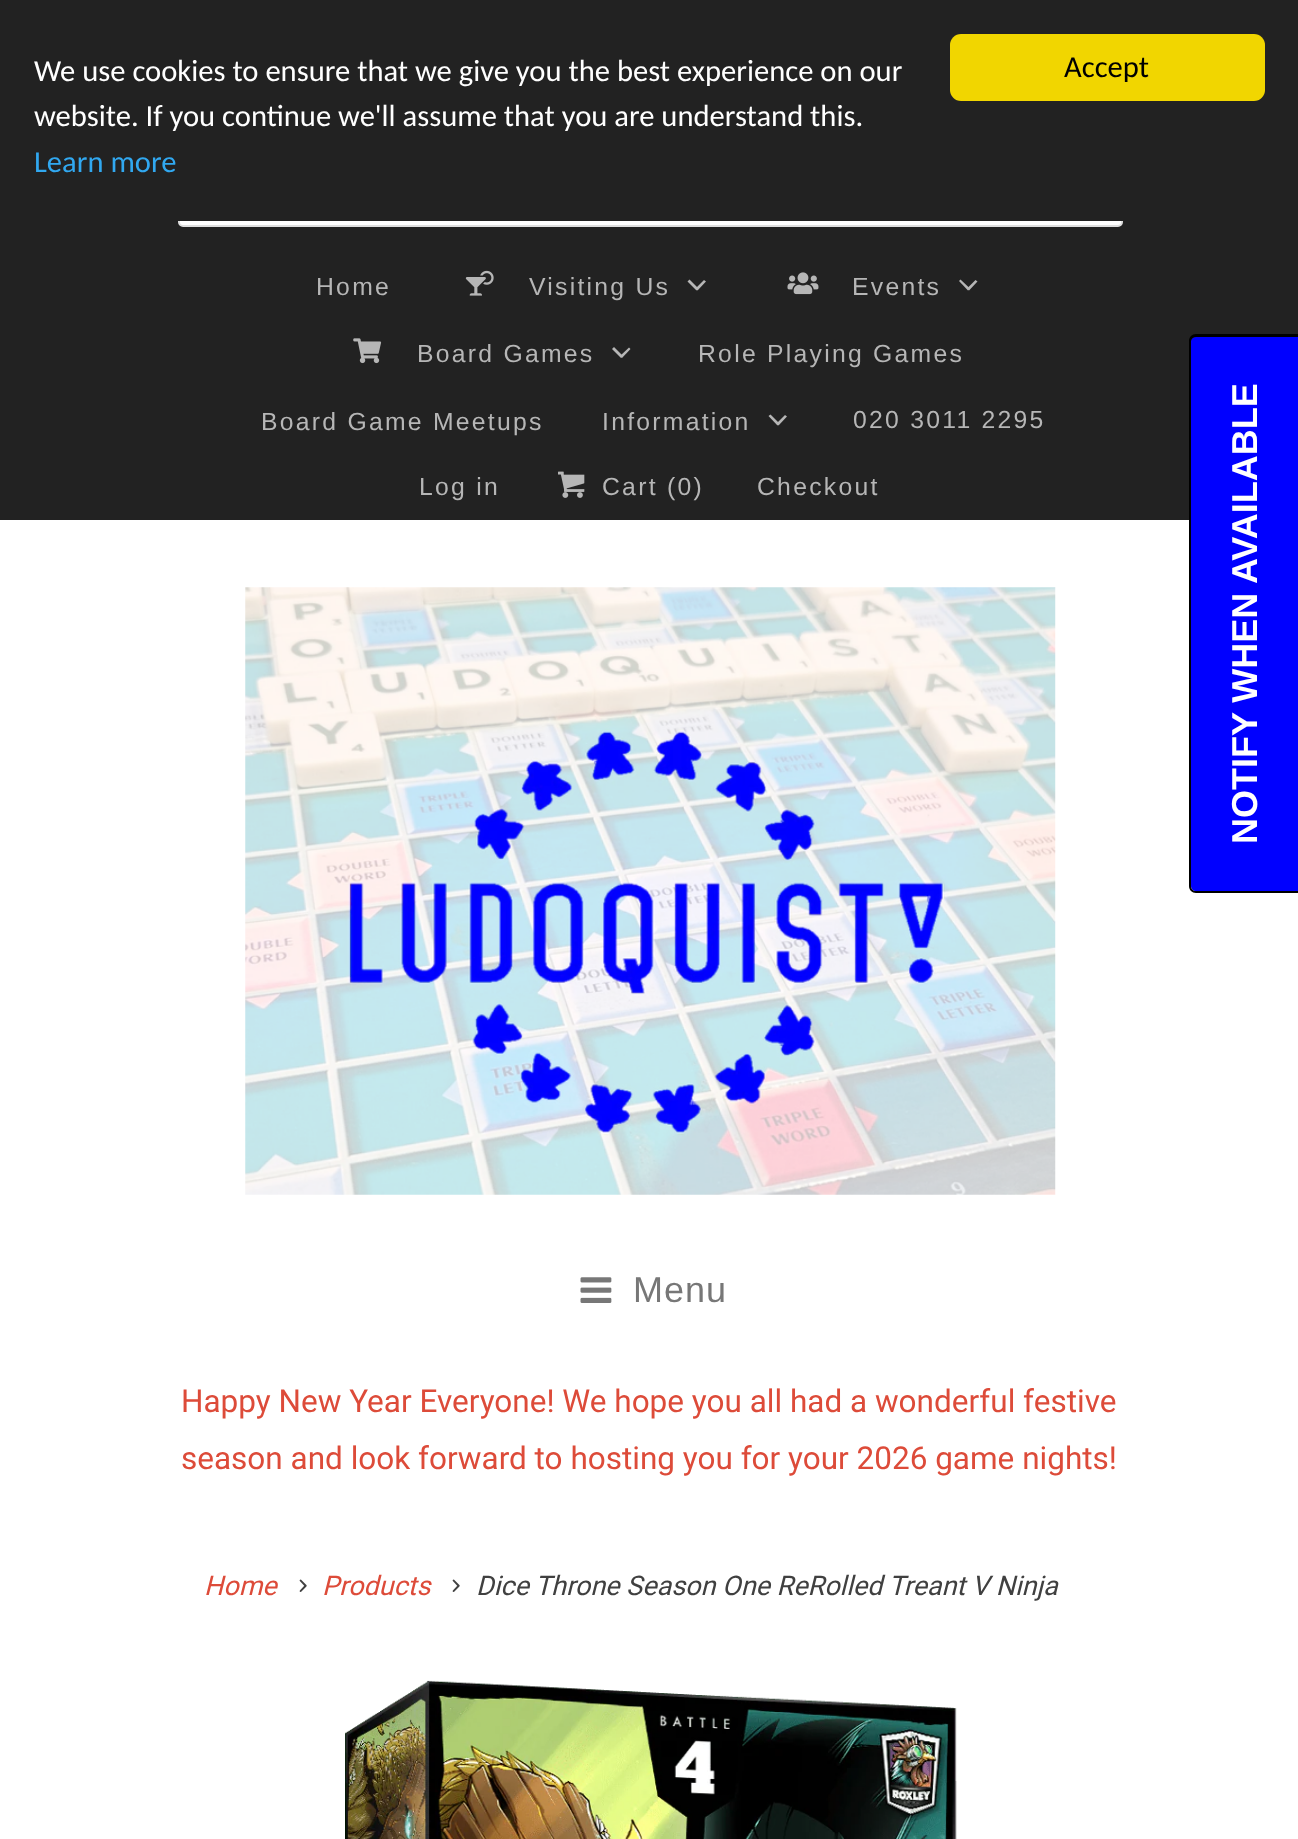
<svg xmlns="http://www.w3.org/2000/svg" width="1298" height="1839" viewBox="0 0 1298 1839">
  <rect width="100%" height="100%" fill="rgb(255,255,255)"/>
  <rect x="0" y="221" width="1298" height="299" fill="rgb(34,34,34)"/>
  <rect x="179" y="161" width="943" height="65" rx="4" fill="rgb(255,255,255)" stroke="rgb(223,223,223)" stroke-width="2"/>
  <rect x="0" y="0" width="1298" height="221" fill="rgb(34,34,34)"/>
  <g font-family="Carlito" font-size="30.6" fill="rgb(255,255,255)">
    <text>
      <tspan x="34" y="81">We use cookies to ensure that we give you the best experience on our</tspan>
      <tspan x="34" y="126">website. If you continue we'll assume that you are understand this.</tspan>
    </text>
  </g>
  <text x="34" y="172" font-family="Carlito" font-size="30.6" fill="rgb(49,168,240)">Learn more</text>
  <rect x="950" y="34" width="315" height="67" rx="11" fill="rgb(241,214,0)"/>
  <text x="1064" y="77" font-family="Carlito" font-size="30.6" fill="rgb(0,0,0)">Accept</text>
  <text x="316" y="295" font-family="Liberation Sans" font-size="24.75" letter-spacing="2.25" fill="rgb(182,182,182)">Home</text>
  <image x="465" y="270" width="29" height="26" href="pic1.png"/>
  <text x="529" y="295" font-family="Liberation Sans" font-size="24.75" letter-spacing="2.25" fill="rgb(182,182,182)">Visiting Us</text>
  <path d="M704 280L706 281.5L697.5 290.5L695.5 288.5Z" fill="rgb(182,182,182)"/>
  <path d="M689.5 279.5L698.5 288.5L696.5 290.5L687.5 281.5Z" fill="rgb(182,182,182)"/>
  <image x="787" y="272" width="32" height="23" href="pic2.png"/>
  <text x="852" y="295" font-family="Liberation Sans" font-size="24.75" letter-spacing="2.25" fill="rgb(182,182,182)">Events</text>
  <path d="M975.5 280L977.5 281.5L969 290.5L967 288.5Z" fill="rgb(182,182,182)"/>
  <path d="M960.5 279.5L970 288.5L968 290.5L959 281Z" fill="rgb(182,182,182)"/>
  <image x="353" y="338" width="29" height="26" href="pic3.png"/>
  <text x="417" y="362" font-family="Liberation Sans" font-size="24.75" letter-spacing="2.25" fill="rgb(182,182,182)">Board Games</text>
  <path d="M629 347.5L630.5 349L622 358L620 356Z" fill="rgb(182,182,182)"/>
  <path d="M614 347L623 356L621 358L612 349Z" fill="rgb(182,182,182)"/>
  <g font-family="Liberation Sans" font-size="24.75" letter-spacing="2.25" fill="rgb(182,182,182)">
    <text x="698" y="362">Role Playing Games</text>
    <text x="261" y="430">Board Game Meetups</text>
    <text x="602" y="430">Information</text>
  </g>
  <path d="M785 415L787 416.5L778.5 425.5L776.5 423.5Z" fill="rgb(182,182,182)"/>
  <path d="M770.5 414.5L779.5 423.5L777.5 425.5L768.5 416Z" fill="rgb(182,182,182)"/>
  <g font-family="Liberation Sans" font-size="24.75" letter-spacing="2.25" fill="rgb(182,182,182)">
    <text x="853" y="428">020 3011 2295</text>
    <text x="419" y="495">Log in</text>
  </g>
  <image x="558" y="471" width="27" height="27" href="pic4.png"/>
  <g font-family="Liberation Sans" font-size="24.75" letter-spacing="2.25" fill="rgb(182,182,182)">
    <text x="602" y="495">Cart (0)</text>
    <text x="757" y="495">Checkout</text>
  </g>
  <image x="245" y="587" width="811" height="608" href="pic5.png"/>
  <image x="580" y="1277" width="32" height="26" href="pic6.png"/>
  <text x="633" y="1302" font-family="Liberation Sans" font-size="36" letter-spacing="1" fill="rgb(119,119,119)">Menu</text>
  <g font-family="Roboto" font-size="31.5" fill="rgb(221,75,57)">
    <text>
      <tspan x="181" y="1412">Happy New Year Everyone! We hope you all had a wonderful festive</tspan>
      <tspan x="181" y="1469">season and look forward to hosting you for your 2026 game nights!</tspan>
    </text>
  </g>
  <path d="M1191 886V341C1191 339 1193 337 1196 337H1298V891H1196C1193 891 1191 889 1191 886Z" fill="rgb(0,0,255)"/>
  <path d="M1189 886V341C1189 337 1192 334 1196 334H1298V893H1196C1192 893 1189 890 1189 886ZM1191 886V341C1191 339 1193 337 1196 337H1298V891H1196C1193 891 1191 889 1191 886Z" fill="rgb(0,0,0)" fill-rule="evenodd"/>
  <text x="1257" y="844" transform="rotate(-90 1257 844)" font-family="Liberation Sans" font-size="36" font-weight="bold" fill="rgb(255,255,255)">NOTIFY WHEN AVAILABLE</text>
  <text x="204" y="1595" font-family="Roboto" font-size="27" font-style="italic" fill="rgb(221,75,57)">Home</text>
  <image x="299" y="1579" width="8" height="13" href="pic7.png"/>
  <text x="322" y="1595" font-family="Roboto" font-size="27" font-style="italic" fill="rgb(221,75,57)">Products</text>
  <image x="452" y="1579" width="8" height="13" href="pic7.png"/>
  <text x="476" y="1595" font-family="Roboto" font-size="27" font-style="italic" fill="rgb(64,64,64)">Dice Throne Season One ReRolled Treant V Ninja</text>
  <image x="345" y="1680" width="612" height="159" href="pic8.png"/>
</svg>
